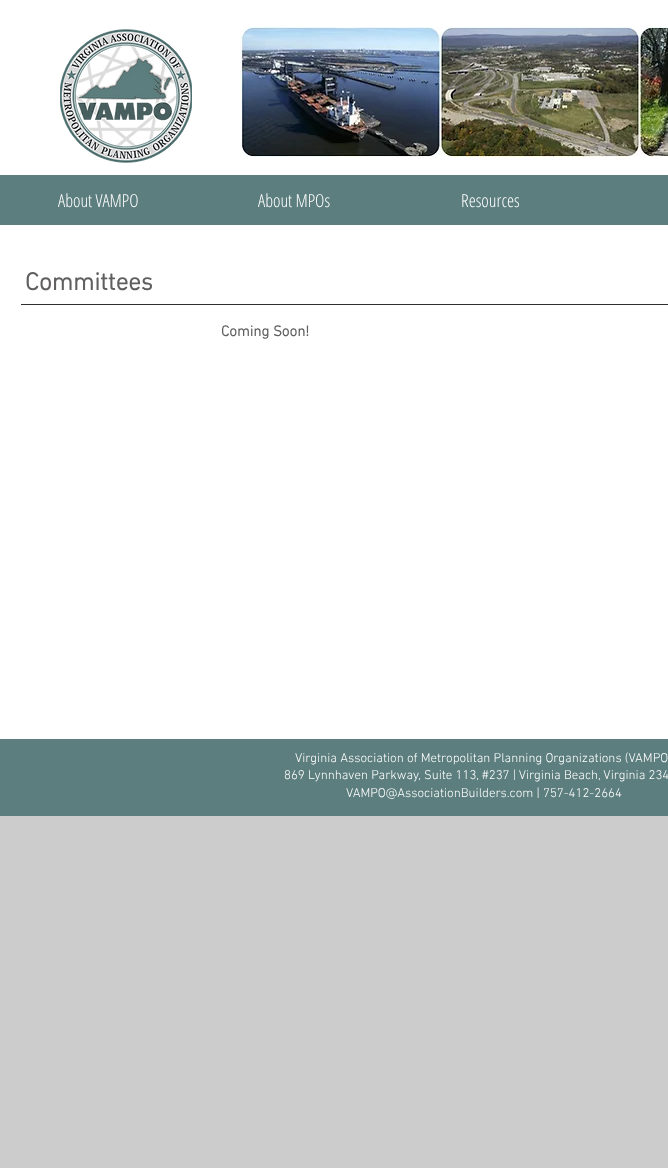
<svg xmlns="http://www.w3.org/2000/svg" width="668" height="1168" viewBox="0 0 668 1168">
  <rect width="100%" height="100%" fill="rgb(204,204,204)"/>
  <rect x="0" y="0" width="668" height="739" fill="rgb(255,255,255)"/>
  <image x="60" y="29" width="132" height="134" href="pic1.png"/>
  <image x="240" y="27" width="428" height="130" href="pic2.png"/>
  <rect x="0" y="175" width="668" height="50" fill="rgb(93,126,126)"/>
  <g font-family="Open Sans Condensed" font-size="18" font-weight="300" fill="rgb(255,255,255)">
    <text x="58" y="207">About VAMPO</text>
    <text x="258" y="207">About MPOs</text>
    <text x="461" y="207">Resources</text>
  </g>
  <text x="25" y="290" font-family="'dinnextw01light'" font-size="25" font-weight="bold" fill="rgb(96,94,94)">Committees</text>
  <rect x="21" y="304" width="647" height="1" fill="rgb(47,46,46)"/>
  <text x="221" y="336" font-family="'dinnextw01light'" font-size="15" font-weight="bold" fill="rgb(96,94,94)">Coming Soon!</text>
  <rect x="0" y="739" width="668" height="77" fill="rgb(93,126,126)"/>
  <g font-family="'dinnextw01light'" font-size="13" font-weight="300" fill="rgb(255,255,255)">
    <text x="295" y="762">Virginia Association of Metropolitan Planning Organizations (VAMPO</text>
    <text x="284" y="779">869 Lynnhaven Parkway, Suite 113, #237 | Virginia Beach, Virginia 234</text>
    <text x="346" y="797">VAMPO@AssociationBuilders.com | 757-412-2664</text>
  </g>
</svg>
